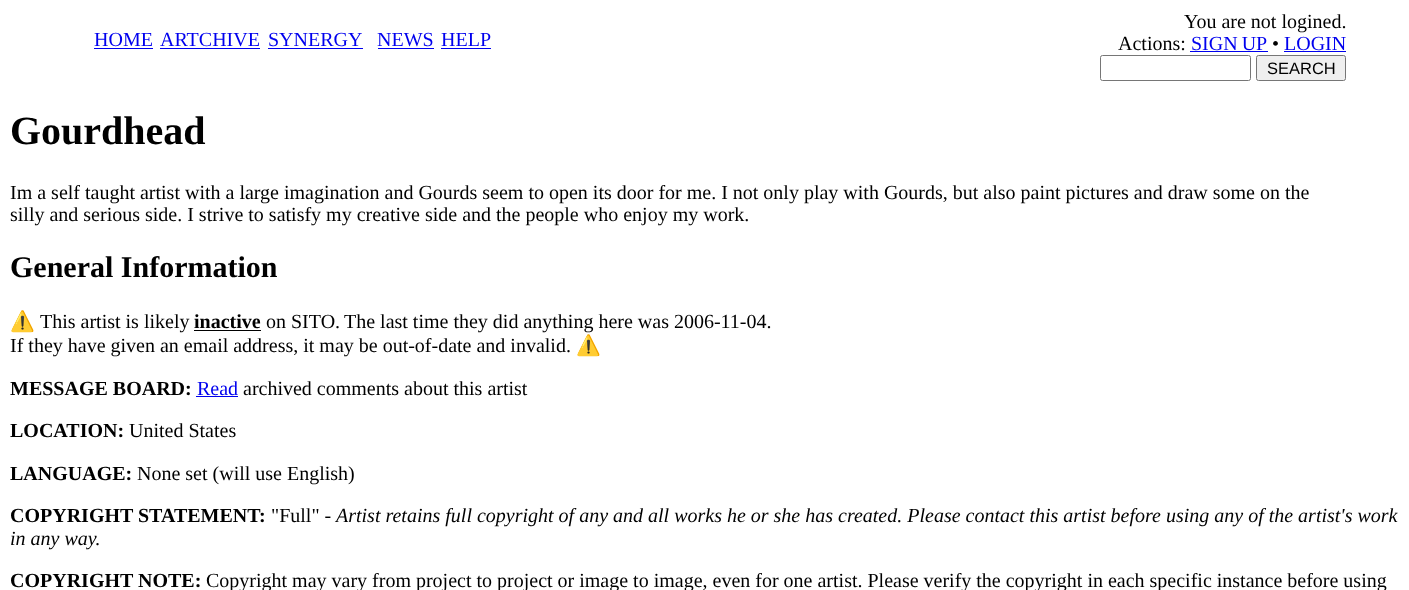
<svg xmlns="http://www.w3.org/2000/svg" width="1409" height="590" viewBox="0 0 1409 590">
  <rect width="100%" height="100%" fill="rgb(255,255,255)"/>
  <text x="94" y="46" font-family="Liberation Serif" font-size="20" fill="rgb(0,0,238)">HOME</text>
  <rect x="94" y="48" width="59" height="1" fill="rgb(0,0,238)"/>
  <text x="160" y="46" font-family="Liberation Serif" font-size="20" fill="rgb(0,0,238)">ARTCHIVE</text>
  <rect x="160" y="48" width="100" height="1" fill="rgb(0,0,238)"/>
  <text x="268" y="46" font-family="Liberation Serif" font-size="20" fill="rgb(0,0,238)">SYNERGY</text>
  <rect x="268" y="48" width="95" height="1" fill="rgb(0,0,238)"/>
  <text x="377" y="46" font-family="Liberation Serif" font-size="20" fill="rgb(0,0,238)">NEWS</text>
  <rect x="378" y="48" width="56" height="1" fill="rgb(0,0,238)"/>
  <text x="441" y="46" font-family="Liberation Serif" font-size="20" fill="rgb(0,0,238)">HELP</text>
  <rect x="441" y="48" width="50" height="1" fill="rgb(0,0,238)"/>
  <g font-family="Liberation Serif" font-size="20" fill="rgb(0,0,0)">
    <text x="1184" y="28">You are not logined.</text>
    <text x="1118" y="50">Actions:</text>
  </g>
  <text x="1191" y="50" word-spacing="-1" font-family="Liberation Serif" font-size="20" fill="rgb(0,0,238)">SIGN UP</text>
  <rect x="1190" y="51" width="78" height="1" fill="rgb(0,0,238)"/>
  <text x="1272" y="50" font-family="Liberation Serif" font-size="20" fill="rgb(0,0,0)">•</text>
  <text x="1284" y="50" font-family="Liberation Serif" font-size="20" fill="rgb(0,0,238)">LOGIN</text>
  <rect x="1284" y="51" width="62" height="1" fill="rgb(0,0,238)"/>
  <rect x="1100.5" y="55.5" width="150" height="25" rx="2" fill="none" stroke="rgb(118,118,118)"/>
  <rect x="1256.5" y="55.5" width="89" height="25" rx="2" fill="rgb(239,239,239)" stroke="rgb(118,118,118)"/>
  <text x="1267" y="74" font-family="Liberation Sans" font-size="16.5" fill="rgb(0,0,0)">SEARCH</text>
  <text x="10" y="144" font-family="Liberation Serif" font-size="40" font-weight="bold" fill="rgb(0,0,0)">Gourdhead</text>
  <g font-family="Liberation Serif" font-size="20" fill="rgb(0,0,0)">
    <text>
      <tspan x="10" y="199">Im a self taught artist with a large imagination and Gourds seem to open its door for me. I not only play with Gourds, but also paint pictures and draw some on the</tspan>
      <tspan x="10" y="221">silly and serious side. I strive to satisfy my creative side and the people who enjoy my work.</tspan>
    </text>
  </g>
  <text x="10" y="277" font-family="Liberation Serif" font-size="30" font-weight="bold" fill="rgb(0,0,0)">General Information</text>
  <text x="10" y="328" font-family="Noto Color Emoji" font-size="20" fill="rgb(0,0,0)">⚠️</text>
  <text x="40" y="328" font-family="Liberation Serif" font-size="20" fill="rgb(0,0,0)">This artist is likely</text>
  <text x="194" y="328" font-family="Liberation Serif" font-size="20" font-weight="bold" fill="rgb(0,0,0)">inactive</text>
  <rect x="194" y="330" width="67" height="1" fill="rgb(0,0,0)"/>
  <g font-family="Liberation Serif" font-size="20" fill="rgb(0,0,0)">
    <text x="266" y="328">on SITO.</text>
    <text x="344" y="328">The last time they did anything here was 2006-11-04.</text>
    <text x="10" y="352">If they have given an email address, it may be out-of-date and invalid.</text>
  </g>
  <text x="576" y="352" font-family="Noto Color Emoji" font-size="20" fill="rgb(0,0,0)">⚠️</text>
  <text x="10" y="395" font-family="Liberation Serif" font-size="20" font-weight="bold" fill="rgb(0,0,0)">MESSAGE BOARD:</text>
  <text x="197" y="395" font-family="Liberation Serif" font-size="20" fill="rgb(0,0,238)">Read</text>
  <rect x="196" y="396" width="42" height="1" fill="rgb(0,0,238)"/>
  <text x="243" y="395" font-family="Liberation Serif" font-size="20" fill="rgb(0,0,0)">archived comments about this artist</text>
  <text x="10" y="437" font-family="Liberation Serif" font-size="20" font-weight="bold" fill="rgb(0,0,0)">LOCATION:</text>
  <text x="129" y="437" font-family="Liberation Serif" font-size="20" fill="rgb(0,0,0)">United States</text>
  <text x="10" y="480" font-family="Liberation Serif" font-size="20" font-weight="bold" fill="rgb(0,0,0)">LANGUAGE:</text>
  <text x="137" y="480" font-family="Liberation Serif" font-size="20" fill="rgb(0,0,0)">None set (will use English)</text>
  <text x="10" y="522" font-family="Liberation Serif" font-size="20" font-weight="bold" fill="rgb(0,0,0)">COPYRIGHT STATEMENT:</text>
  <text x="271" y="522" font-family="Liberation Serif" font-size="20" fill="rgb(0,0,0)">"Full" -</text>
  <g font-family="Liberation Serif" font-size="20" font-style="italic" fill="rgb(0,0,0)">
    <text x="336" y="522">Artist retains full copyright of any and all works he or she has created. Please contact this artist before using any of the artist's work</text>
    <text x="10" y="545">in any way.</text>
  </g>
  <text x="10" y="587" font-family="Liberation Serif" font-size="20" font-weight="bold" fill="rgb(0,0,0)">COPYRIGHT NOTE:</text>
  <text x="206" y="587" font-family="Liberation Serif" font-size="20" fill="rgb(0,0,0)">Copyright may vary from project to project or image to image, even for one artist. Please verify the copyright in each specific instance before using</text>
</svg>
